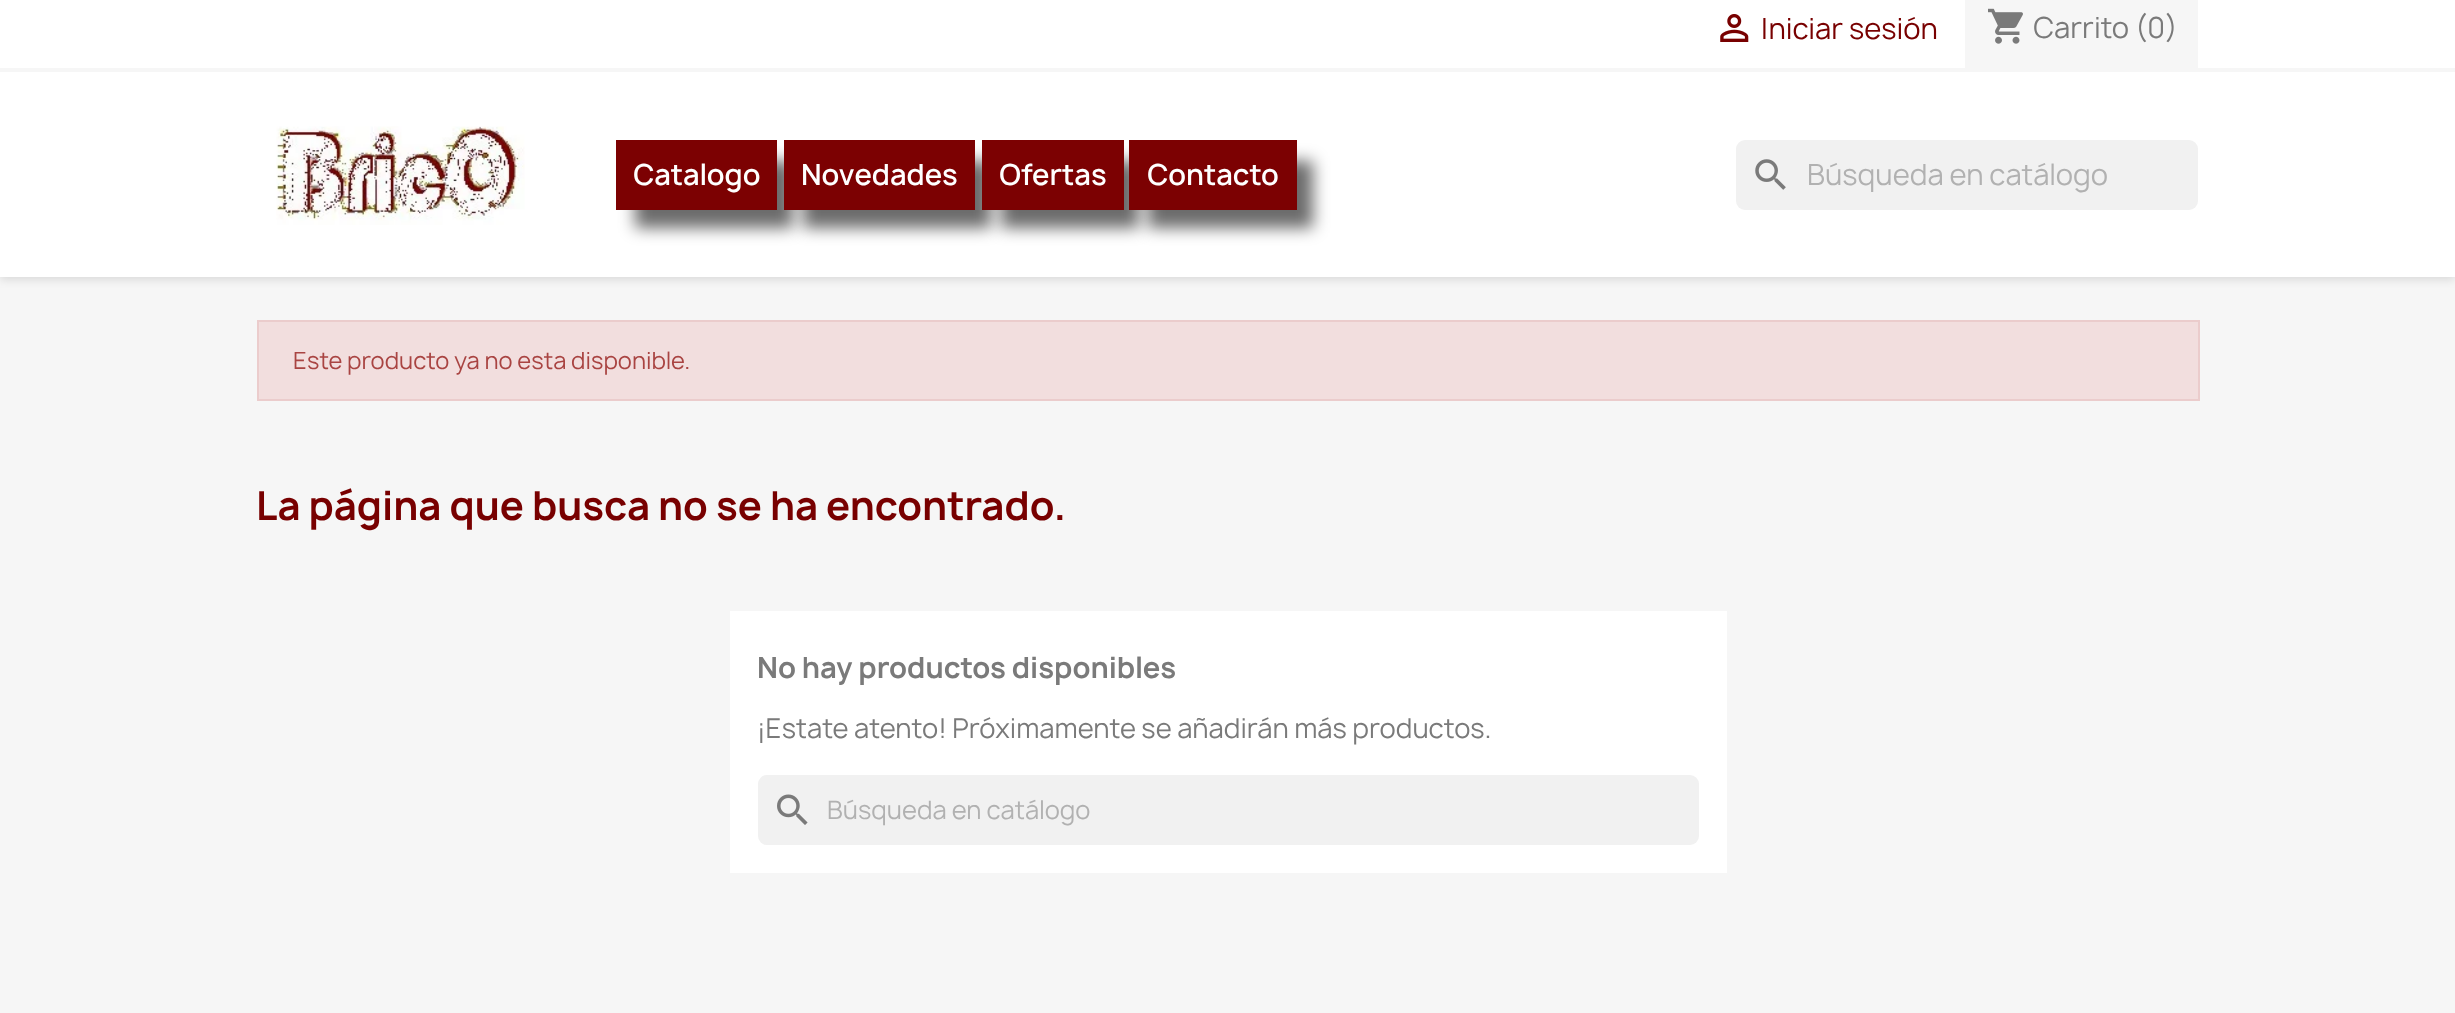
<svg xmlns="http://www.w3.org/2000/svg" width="2455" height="1013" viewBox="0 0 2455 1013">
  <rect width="100%" height="100%" fill="rgb(246,246,246)"/>
  <rect x="0" y="-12" width="2455" height="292" fill="rgba(0,0,0,0.11)" filter="blur(4.5px)"/>
  <rect x="0" y="0" width="2455" height="277" fill="rgb(255,255,255)"/>
  <rect x="0" y="68" width="2455" height="4" fill="rgb(246,246,246)"/>
  <image x="1720" y="14" width="29" height="28" href="pic1.png"/>
  <text x="1761" y="39" font-family="Manrope" font-size="28" fill="rgb(120,0,0)">Iniciar sesión</text>
  <rect x="1965" y="0" width="233" height="68" fill="rgb(246,246,246)"/>
  <image x="1988" y="8" width="35" height="36" href="pic2.png"/>
  <text x="2033" y="38" font-family="Manrope" font-size="28" fill="rgb(122,122,122)">Carrito (0)</text>
  <image x="276" y="126" width="249" height="99" href="pic3.png"/>
  <rect x="635" y="161" width="158" height="67" fill="rgba(0,0,0,0.58)" filter="blur(8px)"/>
  <rect x="616" y="140" width="161" height="70" fill="rgb(124,1,2)"/>
  <text x="633" y="185" font-family="Manrope" font-size="28" font-weight="600" fill="rgb(255,255,255)">Catalogo</text>
  <rect x="803" y="161" width="188" height="67" fill="rgba(0,0,0,0.58)" filter="blur(8px)"/>
  <rect x="784" y="140" width="191" height="70" fill="rgb(124,1,2)"/>
  <text x="801" y="185" font-family="Manrope" font-size="28" font-weight="600" fill="rgb(255,255,255)">Novedades</text>
  <rect x="1001" y="161" width="138" height="67" fill="rgba(0,0,0,0.58)" filter="blur(8px)"/>
  <rect x="982" y="140" width="142" height="70" fill="rgb(124,1,2)"/>
  <text x="999" y="185" font-family="Manrope" font-size="28" font-weight="600" fill="rgb(255,255,255)">Ofertas</text>
  <rect x="1148" y="161" width="165" height="67" fill="rgba(0,0,0,0.58)" filter="blur(8px)"/>
  <rect x="1129" y="140" width="168" height="70" fill="rgb(124,1,2)"/>
  <text x="1147" y="185" font-family="Manrope" font-size="28" font-weight="600" fill="rgb(255,255,255)">Contacto</text>
  <rect x="1736" y="140" width="462" height="70" rx="9" fill="rgb(241,241,241)"/>
  <image x="1755" y="159" width="31" height="31" href="pic4.png"/>
  <text x="1807" y="185" font-family="Manrope" font-size="28" fill="rgb(177,177,177)">Búsqueda en catálogo</text>
  <rect x="258" y="321" width="1941" height="79" fill="rgb(242,222,222)" stroke="rgb(235,204,204)" stroke-width="2"/>
  <text x="293" y="369" font-family="Manrope" font-size="22.75" fill="rgb(169,68,66)">Este producto ya no esta disponible.</text>
  <text x="256" y="520" font-family="Manrope" font-size="38.5" font-weight="bold" fill="rgb(120,0,0)">La página que busca no se ha encontrado.</text>
  <rect x="730" y="611" width="997" height="262" fill="rgb(255,255,255)"/>
  <text x="757" y="678" font-family="Manrope" font-size="28" font-weight="bold" fill="rgb(122,122,122)">No hay productos disponibles</text>
  <text x="757" y="738" font-family="Manrope" font-size="26.25" fill="rgb(122,122,122)">¡Estate atento! Próximamente se añadirán más productos.</text>
  <rect x="758" y="775" width="941" height="70" rx="9" fill="rgb(241,241,241)"/>
  <image x="777" y="794" width="31" height="31" href="pic5.png"/>
  <text x="827" y="819" font-family="Manrope" font-size="24.5" fill="rgb(177,177,177)">Búsqueda en catálogo</text>
</svg>
